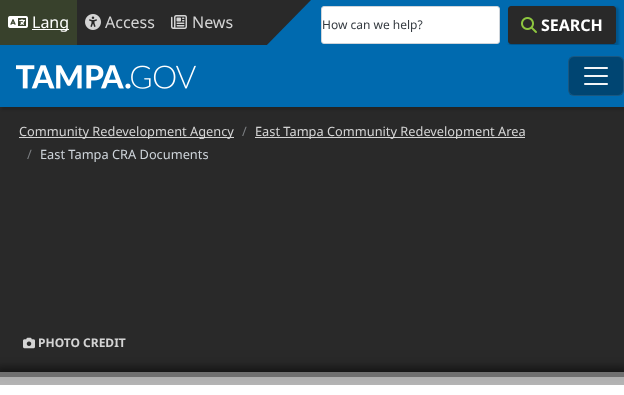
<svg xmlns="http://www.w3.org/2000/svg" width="624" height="395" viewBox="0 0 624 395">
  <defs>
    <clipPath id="clip1"><rect x="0" y="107" width="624" height="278"/></clipPath>
  </defs>
  <rect width="100%" height="100%" fill="rgb(255,255,255)"/>
  <rect x="77" y="0" width="234" height="45" fill="rgb(41,41,41)"/>
  <rect x="0" y="0" width="77" height="45" fill="rgb(56,65,44)"/>
  <image x="8" y="16" width="20" height="12" href="pic1.png"/>
  <rect x="32" y="29" width="37" height="1" fill="rgb(255,255,255)"/>
  <text x="32" y="28" font-family="Noto Sans" font-size="16" fill="rgb(255,255,255)">Lang</text>
  <image x="85" y="14" width="16" height="16" href="pic2.png"/>
  <text x="105" y="28" font-family="Noto Sans" font-size="16" fill="rgb(212,212,212)">Access</text>
  <image x="171" y="15" width="16" height="14" href="pic3.png"/>
  <text x="192" y="28" font-family="Noto Sans" font-size="16" fill="rgb(212,212,212)">News</text>
  <rect x="312" y="0" width="312" height="45" fill="rgb(0,106,175)"/>
  <path d="M263 49L312-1V49Z" fill="rgb(0,106,175)"/>
  <rect x="321.5" y="6.5" width="178" height="37" rx="2.5" fill="rgb(255,255,255)" stroke="rgb(206,212,218)"/>
  <text x="322" y="29" font-family="Noto Sans" font-size="12" fill="rgb(52,58,64)">How can we help?</text>
  <rect x="509" y="7" width="110" height="40" rx="4" fill="rgba(0,0,0,0.2)" filter="blur(1px)"/>
  <rect x="508.5" y="6.5" width="107" height="37" rx="2.5" fill="rgb(41,41,41)" stroke="rgb(41,41,41)"/>
  <image x="521" y="17" width="16" height="16" href="pic4.png"/>
  <text x="541" y="31" font-family="Noto Sans" font-size="16" font-weight="bold" fill="rgb(255,255,255)">SEARCH</text>
  <rect x="0" y="107" width="624" height="278" fill="rgb(41,41,41)"/>
  <rect x="2" y="48" width="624" height="62" fill="rgba(0,0,0,0.13)" filter="blur(1px)"/>
  <rect x="0" y="45" width="624" height="62" fill="rgb(0,106,175)"/>
  <image x="16" y="65" width="180" height="24" href="pic5.png"/>
  <rect x="568" y="56" width="56" height="40" rx="6" fill="rgb(0,69,114)"/>
  <rect x="568.5" y="56.5" width="55" height="39" rx="5.5" fill="none" stroke="rgba(255,255,255,0.1)"/>
  <image x="584" y="67" width="24" height="18" href="pic6.png"/>
  <rect x="19" y="137" width="215" height="1" fill="rgb(212,212,212)"/>
  <text x="19" y="136" font-family="Noto Sans" font-size="12.8" fill="rgb(212,212,212)">Community Redevelopment Agency</text>
  <text x="242" y="136" font-family="Noto Sans" font-size="12.8" fill="rgb(124,127,130)">/</text>
  <rect x="255" y="137" width="270" height="1" fill="rgb(212,212,212)"/>
  <text x="255" y="136" font-family="Noto Sans" font-size="12.8" fill="rgb(212,212,212)">East Tampa Community Redevelopment Area</text>
  <text x="27" y="159" font-family="Noto Sans" font-size="12.8" fill="rgb(124,127,130)">/</text>
  <text x="40" y="159" font-family="Noto Sans" font-size="12.8" fill="rgb(206,212,218)">East Tampa CRA Documents</text>
  <image x="23" y="337" width="12" height="12" href="pic7.png"/>
  <text x="38" y="347" font-family="Noto Sans" font-size="12" font-weight="bold" fill="rgb(212,212,212)">PHOTO CREDIT</text>
  <g clip-path="url(#clip1)">
    <rect x="-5" y="367" width="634" height="15" fill="rgba(0,0,0,0.49)" filter="blur(4.5px)"/>
  </g>
  <rect x="0" y="372" width="624" height="5" fill="rgb(112,112,112)"/>
  <rect x="0" y="377" width="624" height="8" fill="rgba(255,255,255,0.66)"/>
</svg>
